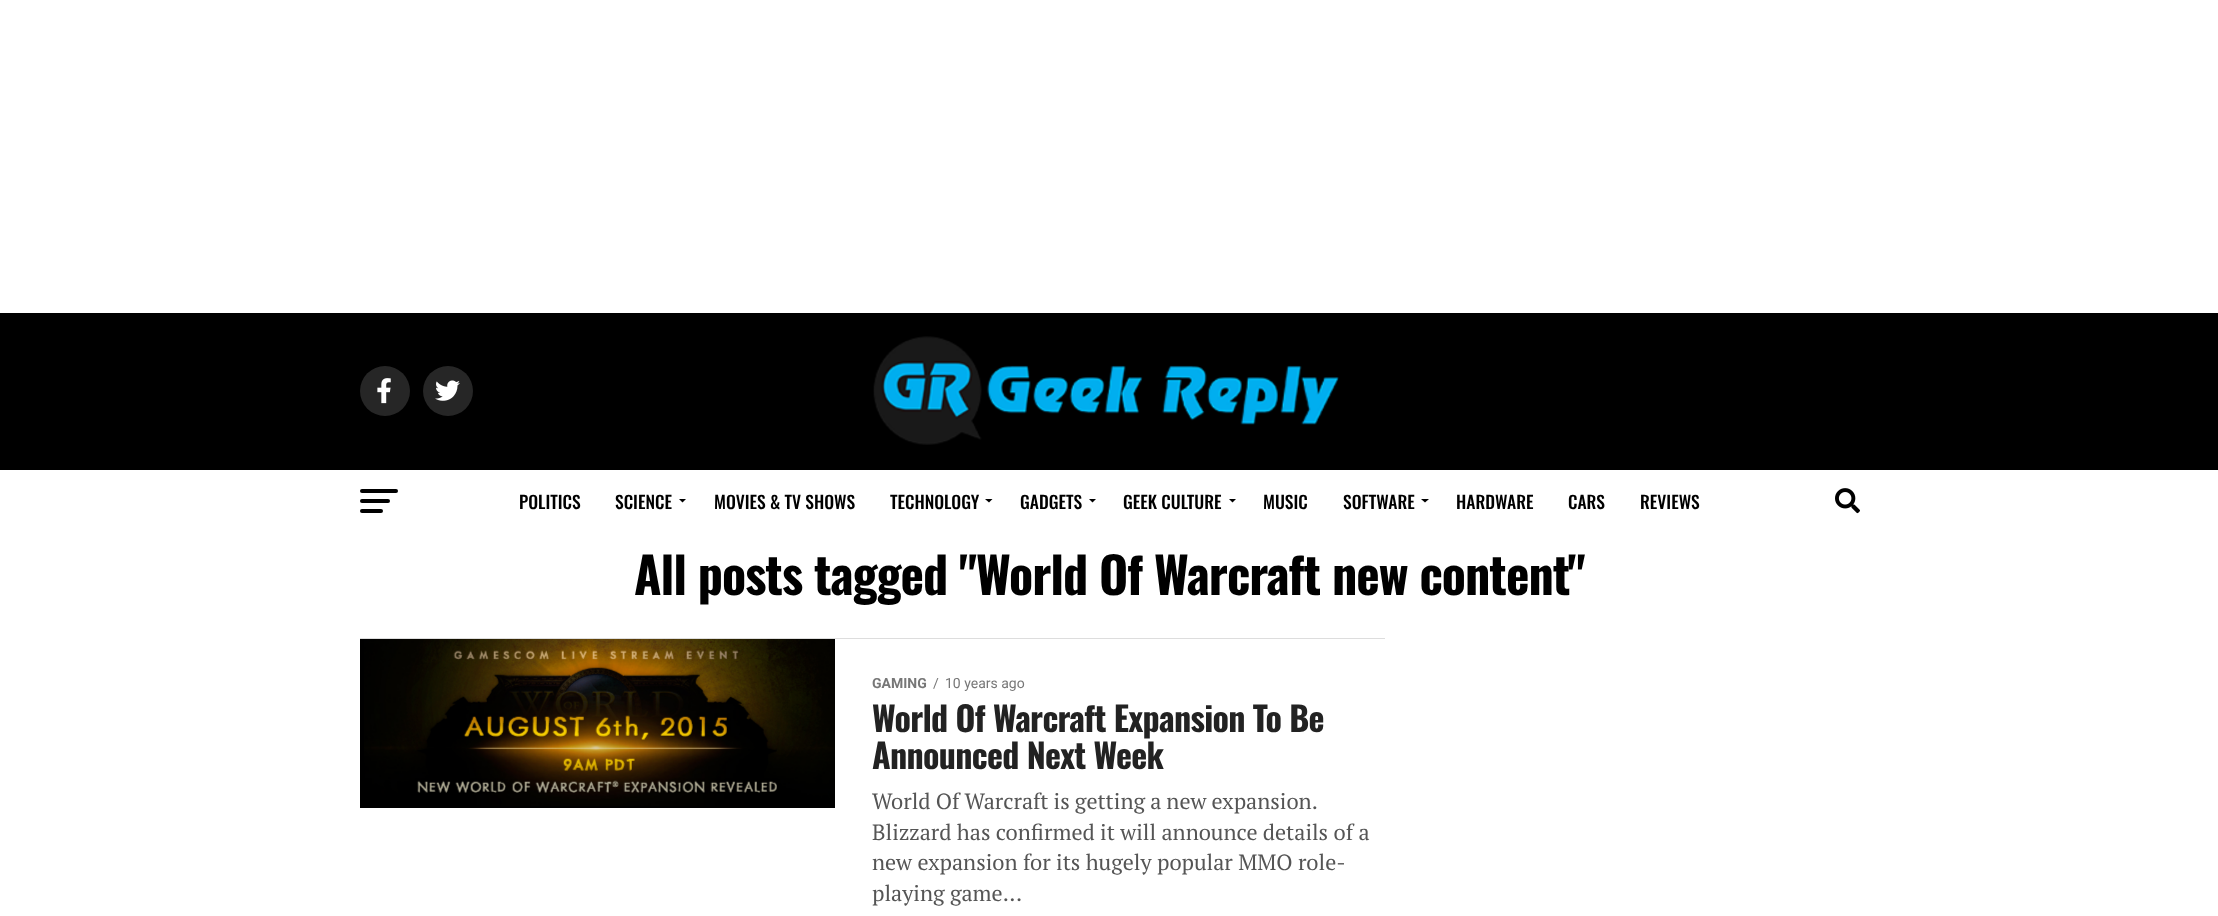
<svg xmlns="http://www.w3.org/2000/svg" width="2218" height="916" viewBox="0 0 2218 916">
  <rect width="100%" height="100%" fill="#ffffff"/>
  <rect x="0" y="313" width="2218" height="157" fill="#000000"/>
  <circle cx="385" cy="391" r="25" fill="#262626"/>
  <image x="377" y="378" width="14" height="26" href="img1.png"/>
  <circle cx="448" cy="391" r="25" fill="#262626"/>
  <image x="435" y="380" width="25" height="21" href="img2.png"/>
  <image x="873" y="336" width="466" height="109" href="img3.png"/>
  <rect x="360" y="489" width="38" height="4" rx="2" fill="#000000"/>
  <rect x="360" y="499" width="30" height="4" rx="2" fill="#000000"/>
  <rect x="360" y="509" width="23" height="4" rx="2" fill="#000000"/>
  <text x="519" y="509" font-family="Oswald" font-size="17.5" font-weight="500" fill="#000000">POLITICS</text>
  <text x="615" y="509" font-family="Oswald" font-size="17.5" font-weight="500" fill="#000000">SCIENCE</text>
  <path d="M679 499H686L682.5 502.5Z" fill="#000000"/>
  <text x="714" y="509" font-family="Oswald" font-size="17.5" font-weight="500" fill="#000000">MOVIES &amp; TV SHOWS</text>
  <text x="890" y="509" font-family="Oswald" font-size="17.5" font-weight="500" fill="#000000">TECHNOLOGY</text>
  <path d="M985 499H992.5L989 502.5Z" fill="#000000"/>
  <text x="1020" y="509" font-family="Oswald" font-size="17.5" font-weight="500" fill="#000000">GADGETS</text>
  <path d="M1089 499H1096L1092.5 502.5Z" fill="#000000"/>
  <text x="1123" y="509" font-family="Oswald" font-size="17.5" font-weight="500" fill="#000000">GEEK CULTURE</text>
  <path d="M1229 499H1236L1232.5 502.5Z" fill="#000000"/>
  <text x="1263" y="509" font-family="Oswald" font-size="17.5" font-weight="500" fill="#000000">MUSIC</text>
  <text x="1343" y="509" font-family="Oswald" font-size="17.5" font-weight="500" fill="#000000">SOFTWARE</text>
  <path d="M1421 499H1429L1425 502.5Z" fill="#000000"/>
  <text x="1456" y="509" font-family="Oswald" font-size="17.5" font-weight="500" fill="#000000">HARDWARE</text>
  <text x="1568" y="509" font-family="Oswald" font-size="17.5" font-weight="500" fill="#000000">CARS</text>
  <text x="1640" y="509" font-family="Oswald" font-size="17.5" font-weight="500" fill="#000000">REVIEWS</text>
  <image x="1835" y="488" width="25" height="26" href="img4.png"/>
  <text x="634" y="595" font-family="Oswald" font-size="50" font-weight="bold" letter-spacing="-1" fill="#000000">All posts tagged "World Of Warcraft new content"</text>
  <rect x="360" y="638" width="1025" height="1" fill="#dddddd"/>
  <rect x="360" y="639" width="475" height="169" fill="#000000"/>
  <image x="364" y="639" width="471" height="167" href="img5.png"/>
  <text x="872" y="688" font-family="Roboto" font-size="14" font-weight="bold" fill="#777777">GAMING</text>
  <text x="933" y="688" font-family="Roboto" font-size="14" fill="#777777">/</text>
  <text x="945" y="688" font-family="Roboto" font-size="14" fill="#777777">10 years ago</text>
  <text x="872" y="732" font-family="Oswald" font-size="34" font-weight="bold" letter-spacing="-0.7" fill="#222222">World Of Warcraft Expansion To Be</text>
  <text x="872" y="769" font-family="Oswald" font-size="34" font-weight="bold" letter-spacing="-0.7" fill="#222222">Announced Next Week</text>
  <text x="872" y="809" word-spacing="-0.25" font-family="PT Serif" font-size="22" fill="#555555">World Of Warcraft is getting a new expansion.</text>
  <text x="872" y="840" font-family="PT Serif" font-size="22" fill="#555555">Blizzard has confirmed it will announce details of a</text>
  <text x="872" y="870" font-family="PT Serif" font-size="22" fill="#555555">new expansion for its hugely popular MMO role-</text>
  <text x="872" y="901" font-family="PT Serif" font-size="22" fill="#555555">playing game...</text>
</svg>
